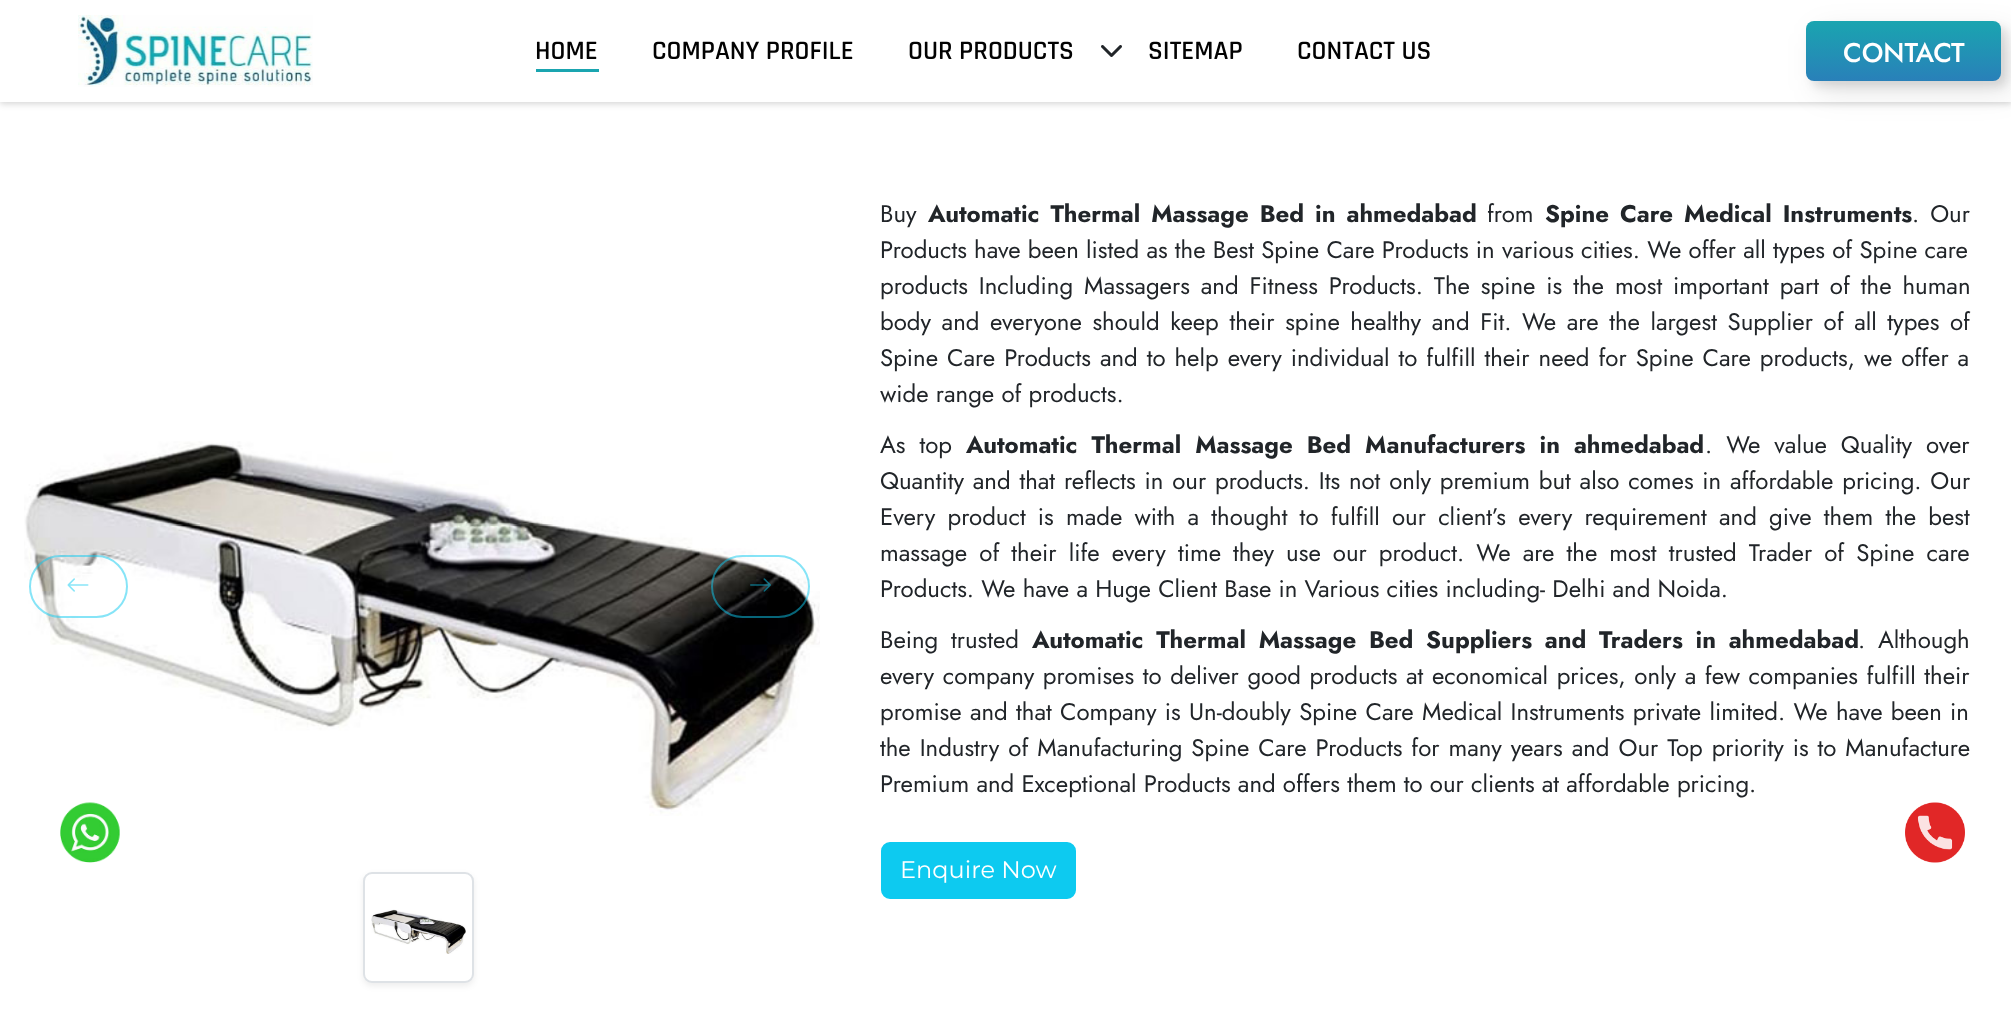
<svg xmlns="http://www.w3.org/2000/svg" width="2011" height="1035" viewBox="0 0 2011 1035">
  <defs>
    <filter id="blur1" x="-50%" y="-200%" width="200%" height="500%"><feGaussianBlur stdDeviation="3"/></filter>
    <filter id="blur2" x="-50%" y="-200%" width="200%" height="500%"><feGaussianBlur stdDeviation="4"/></filter>
    <filter id="blur3" x="-50%" y="-200%" width="200%" height="500%"><feGaussianBlur stdDeviation="15"/></filter>
    <linearGradient id="g1" gradientUnits="userSpaceOnUse" x1="1904" y1="81" x2="1904" y2="21"><stop offset="0" stop-color="#2980b9"/><stop offset="1" stop-color="#1aa5b0"/></linearGradient>
  </defs>
  <rect width="100%" height="100%" fill="#ffffff"/>
  <rect x="0" y="2" width="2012" height="102" fill="#000000" fill-opacity="0.16" filter="url(#blur1)"/>
  <rect x="0" y="0" width="2011" height="102" fill="#ffffff"/>
  <image x="78" y="15" width="235" height="72" href="img1.png"/>
  <text x="535" y="59" font-family="Rajdhani" font-size="27" font-weight="600" fill="#020202">HOME</text>
  <rect x="536" y="69" width="63" height="3" fill="#1aa5b0"/>
  <text x="652" y="59" font-family="Rajdhani" font-size="27" font-weight="600" fill="#020202">COMPANY PROFILE</text>
  <text x="908" y="59" font-family="Rajdhani" font-size="27" font-weight="600" fill="#020202">OUR PRODUCTS</text>
  <image x="1101" y="45" width="21" height="12" href="img2.png"/>
  <text x="1148" y="59" font-family="Rajdhani" font-size="27" font-weight="600" fill="#020202">SITEMAP</text>
  <text x="1297" y="59" font-family="Rajdhani" font-size="27" font-weight="600" fill="#020202">CONTACT US</text>
  <rect x="1812" y="27" width="195" height="60" rx="8" fill="#000000" fill-opacity="0.1" filter="url(#blur2)"/>
  <rect x="1817" y="32" width="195" height="60" rx="8" fill="#000000" fill-opacity="0.1" filter="url(#blur3)"/>
  <rect x="1806" y="21" width="195" height="60" rx="8" fill="url(#g1)"/>
  <text x="1843" y="62" font-family="Jost" font-size="27" font-weight="500" fill="#ffffff">CONTACT</text>
  <image x="24" y="441" width="796" height="375" href="img4.png"/>
  <image x="60" y="802" width="60" height="61" href="img3.png"/>
  <rect x="30" y="556" width="97" height="61" rx="30.5" fill="none" stroke="#0dcaf0" stroke-opacity="0.5" stroke-width="2"/>
  <image x="67" y="578" width="22" height="14" href="img5.png"/>
  <rect x="712" y="556" width="97" height="61" rx="30.5" fill="none" stroke="#0dcaf0" stroke-opacity="0.5" stroke-width="2"/>
  <image x="750" y="578" width="21" height="14" href="img6.png"/>
  <rect x="363" y="875" width="111" height="111" rx="9" fill="#000000" fill-opacity="0.07" filter="url(#blur1)"/>
  <rect x="364" y="873" width="109" height="109" rx="8" fill="#ffffff" stroke="#dee2e6" stroke-width="2"/>
  <image x="371" y="909" width="95" height="45" href="img7.png"/>
  <text x="880" y="222" font-family="Jost" font-size="24" fill="#212529">Buy</text>
  <text x="928" y="222" word-spacing="3.75" font-family="Jost" font-size="24" font-weight="bold" fill="#212529">Automatic Thermal Massage Bed in ahmedabad</text>
  <text x="1487" y="222" font-family="Jost" font-size="24" fill="#212529">from</text>
  <text x="1545" y="222" word-spacing="3.75" font-family="Jost" font-size="24" font-weight="bold" fill="#212529">Spine Care Medical Instruments</text>
  <text x="1912" y="222" word-spacing="3.75" font-family="Jost" font-size="24" fill="#212529">. Our</text>
  <text x="880" y="258" font-family="Jost" font-size="24" fill="#212529">Products have been listed as the Best Spine Care Products in various cities. We offer all types of Spine care</text>
  <text x="880" y="294" word-spacing="3.75" font-family="Jost" font-size="24" fill="#212529">products Including Massagers and Fitness Products. The spine is the most important part of the human</text>
  <text x="880" y="330" word-spacing="3.4" font-family="Jost" font-size="24" fill="#212529">body and everyone should keep their spine healthy and Fit. We are the largest Supplier of all types of</text>
  <text x="880" y="366" word-spacing="1.75" font-family="Jost" font-size="24" fill="#212529">Spine Care Products and to help every individual to fulfill their need for Spine Care products, we offer a</text>
  <text x="880" y="402" font-family="Jost" font-size="24" fill="#212529">wide range of products.</text>
  <text x="880" y="453" word-spacing="6.75" font-family="Jost" font-size="24" fill="#212529">As top</text>
  <text x="966" y="453" word-spacing="6.75" font-family="Jost" font-size="24" font-weight="bold" fill="#212529">Automatic Thermal Massage Bed Manufacturers in ahmedabad</text>
  <text x="1705" y="453" word-spacing="6.75" font-family="Jost" font-size="24" fill="#212529">. We value Quality over</text>
  <text x="880" y="489" word-spacing="1.6" font-family="Jost" font-size="24" fill="#212529">Quantity and that reflects in our products. Its not only premium but also comes in affordable pricing. Our</text>
  <text x="880" y="525" word-spacing="5" font-family="Jost" font-size="24" fill="#212529">Every product is made with a thought to fulfill our client’s every requirement and give them the best</text>
  <text x="880" y="561" word-spacing="4.9" font-family="Jost" font-size="24" fill="#212529">massage of their life every time they use our product. We are the most trusted Trader of Spine care</text>
  <text x="880" y="597" font-family="Jost" font-size="24" fill="#212529">Products. We have a Huge Client Base in Various cities including- Delhi and Noida.</text>
  <text x="880" y="648" word-spacing="5.5" font-family="Jost" font-size="24" fill="#212529">Being trusted</text>
  <text x="1032" y="648" word-spacing="5.5" font-family="Jost" font-size="24" font-weight="bold" fill="#212529">Automatic Thermal Massage Bed Suppliers and Traders in ahmedabad</text>
  <text x="1858" y="648" font-family="Jost" font-size="24" fill="#212529">.</text>
  <text x="1878" y="648" font-family="Jost" font-size="24" fill="#212529">Although</text>
  <text x="880" y="684" word-spacing="1.4" font-family="Jost" font-size="24" fill="#212529">every company promises to deliver good products at economical prices, only a few companies fulfill their</text>
  <text x="880" y="720" word-spacing="1.1" font-family="Jost" font-size="24" fill="#212529">promise and that Company is Un-doubly Spine Care Medical Instruments private limited. We have been in</text>
  <text x="880" y="756" word-spacing="1.75" font-family="Jost" font-size="24" fill="#212529">the Industry of Manufacturing Spine Care Products for many years and Our Top priority is to Manufacture</text>
  <text x="880" y="792" font-family="Jost" font-size="24" fill="#212529">Premium and Exceptional Products and offers them to our clients at affordable pricing.</text>
  <rect x="882" y="843" width="193" height="55" rx="8" fill="#0dcaf0" stroke="#0dcaf0" stroke-width="2"/>
  <text x="900" y="878" font-family="Montserrat" font-size="24" fill="#ffffff">Enquire Now</text>
  <image x="1905" y="802" width="60" height="61" href="img8.png"/>
</svg>
